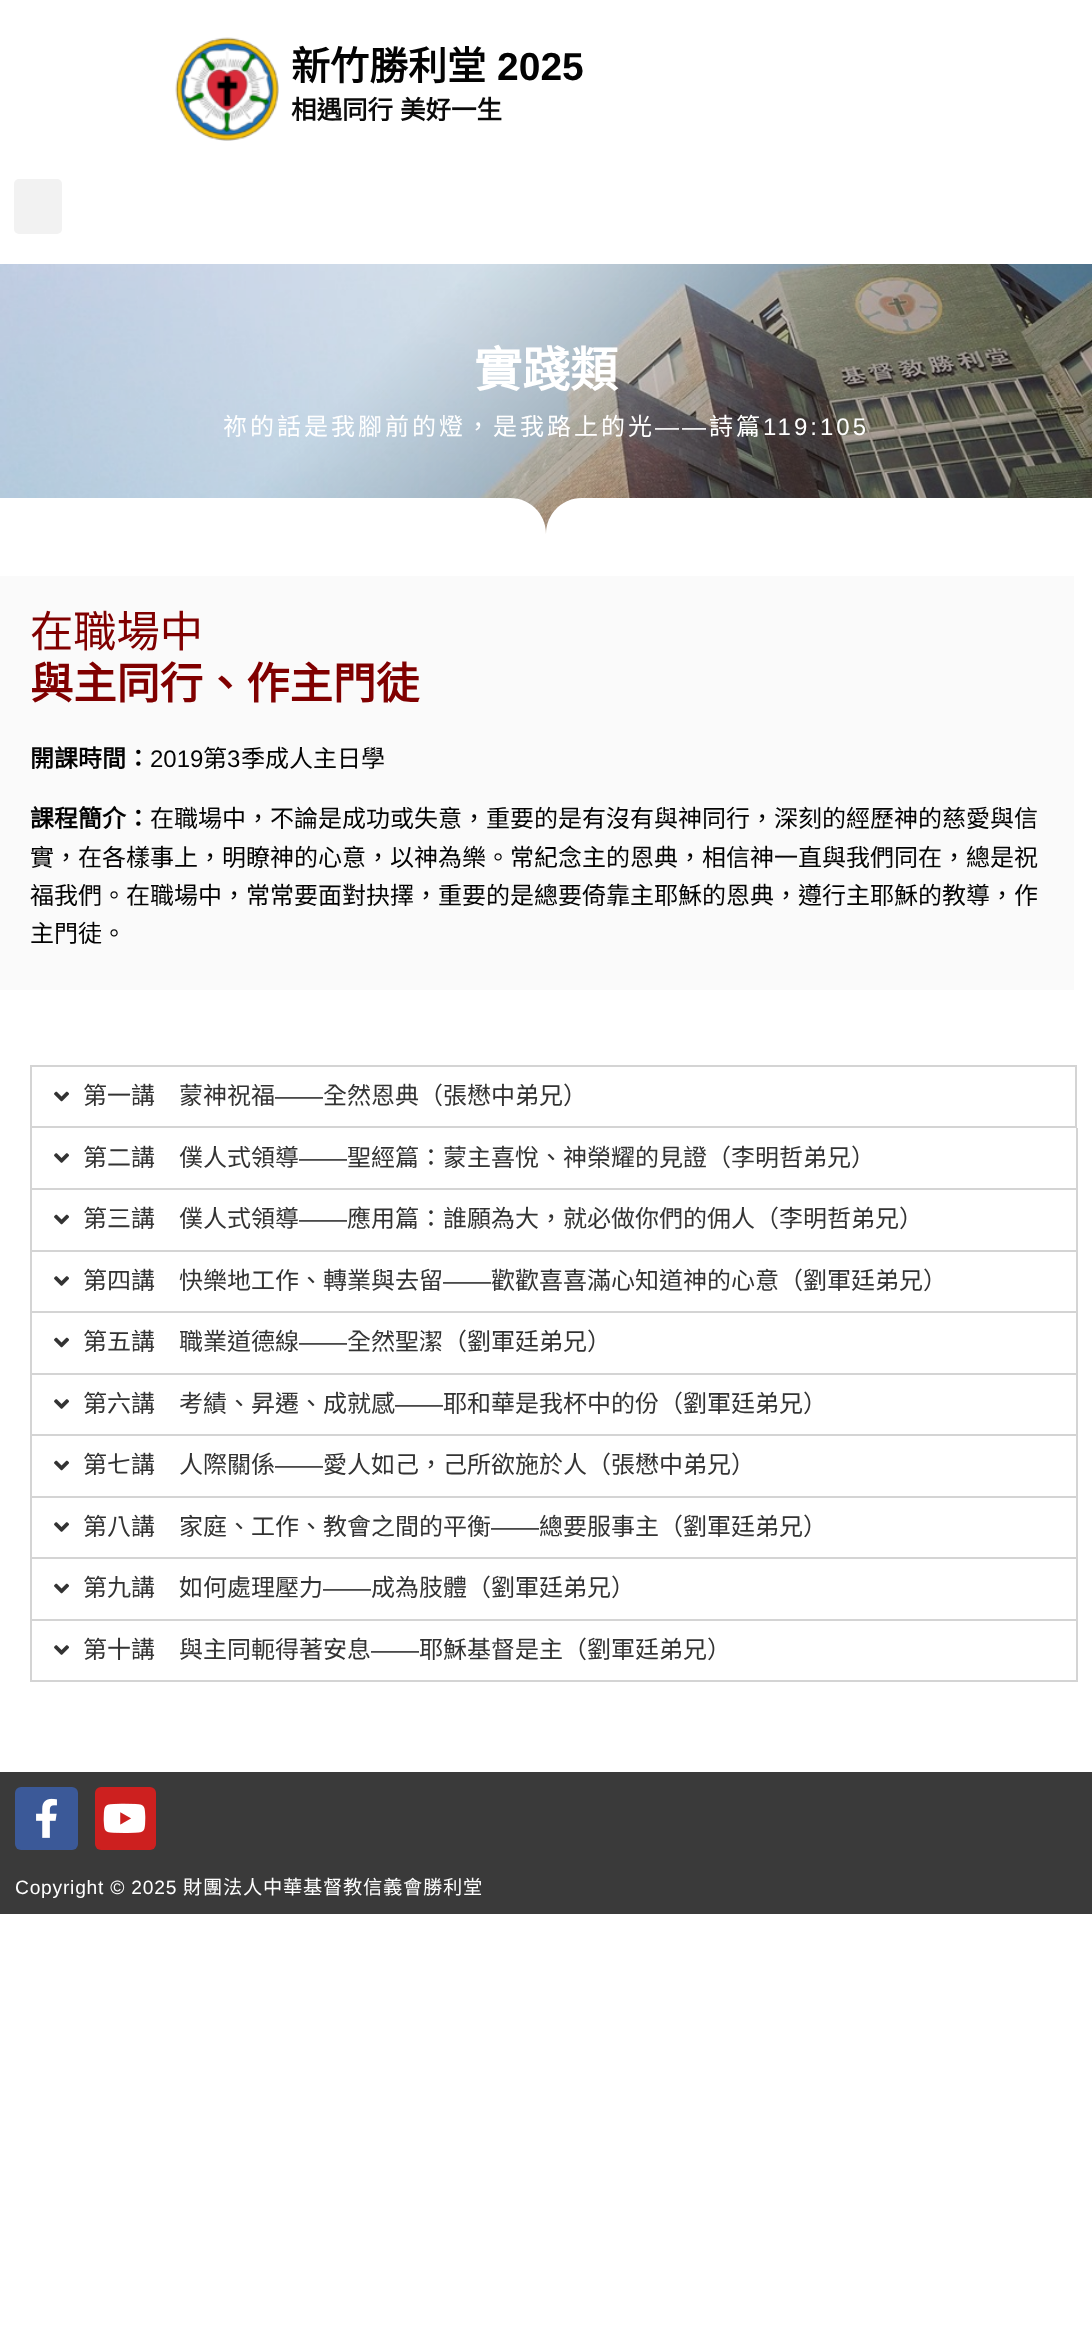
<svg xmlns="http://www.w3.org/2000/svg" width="1092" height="2329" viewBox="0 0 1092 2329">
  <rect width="100%" height="100%" fill="#ffffff"/>
  <image x="175" y="37" width="104" height="104" href="img1.png"/>
  <text x="291" y="80" font-family="Noto Sans CJK TC" font-size="39" font-weight="bold" fill="#030303">新竹勝利堂</text>
  <text x="497" y="80" font-family="Liberation Sans" font-size="39" font-weight="bold" fill="#030303">2025</text>
  <text x="291" y="119" font-family="Noto Sans CJK TC" font-size="25.5" font-weight="bold" fill="#0a0a0a">相遇同行</text>
  <text x="400" y="119" font-family="Noto Sans CJK TC" font-size="25.5" font-weight="bold" fill="#0a0a0a">美好一生</text>
  <rect x="14" y="179" width="48" height="55" rx="5" fill="#f2f2f2"/>
  <image x="0" y="264" width="1092" height="270" href="img2.png"/>
  <text x="474" y="387" font-family="Noto Sans CJK TC" font-size="48" font-weight="bold" fill="#ffffff">實踐類</text>
  <text x="223" y="435" font-family="Noto Sans CJK TC" font-size="24" letter-spacing="3" fill="#ffffff">祢的話是我腳前的燈，是我路上的光</text>
  <text x="655" y="435" font-family="Liberation Sans" font-size="24" letter-spacing="3" fill="#ffffff">——</text>
  <text x="709" y="435" font-family="Noto Sans CJK TC" font-size="24" letter-spacing="3" fill="#ffffff">詩篇</text>
  <text x="763" y="435" font-family="Liberation Sans" font-size="24" letter-spacing="3" fill="#ffffff">119:105</text>
  <path d="M582 498C562 498 546 514 546 534C546 514 530 498 510 498H-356V536H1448V498Z" fill="#ffffff"/>
  <rect x="0" y="576" width="1074" height="414" fill="#fafafa"/>
  <text x="30" y="647" font-family="Noto Sans CJK TC" font-size="43.25" fill="#800000">在職場中</text>
  <text x="30" y="699" font-family="Noto Sans CJK TC" font-size="43.25" font-weight="bold" fill="#800000">與主同行、作主門徒</text>
  <text x="30" y="767" font-family="Noto Sans CJK TC" font-size="24" font-weight="bold" fill="#030303">開課時間：</text>
  <text x="150" y="767" font-family="Liberation Sans" font-size="24" fill="#030303">2019</text>
  <text x="203" y="767" font-family="Noto Sans CJK TC" font-size="24" fill="#030303">第</text>
  <text x="227" y="767" font-family="Liberation Sans" font-size="24" fill="#030303">3</text>
  <text x="241" y="767" font-family="Noto Sans CJK TC" font-size="24" fill="#030303">季成人主日學</text>
  <text x="30" y="827" font-family="Noto Sans CJK TC" font-size="24" font-weight="bold" fill="#030303">課程簡介：</text>
  <text x="150" y="827" font-family="Noto Sans CJK TC" font-size="24" fill="#030303">在職場中，不論是成功或失意，重要的是有沒有與神同行，深刻的經歷神的慈愛與信</text>
  <text x="30" y="866" font-family="Noto Sans CJK TC" font-size="24" fill="#030303">實，在各樣事上，明瞭神的心意，以神為樂。常紀念主的恩典，相信神一直與我們同在，總是祝</text>
  <text x="30" y="904" font-family="Noto Sans CJK TC" font-size="24" fill="#030303">福我們。在職場中，常常要面對抉擇，重要的是總要倚靠主耶穌的恩典，遵行主耶穌的教導，作</text>
  <text x="30" y="942" font-family="Noto Sans CJK TC" font-size="24" fill="#030303">主門徒。</text>
  <rect x="31" y="1066" width="1045" height="61" fill="none" stroke="#d4d4d4" stroke-width="2"/>
  <image x="54" y="1091" width="15" height="11" href="img3.png"/>
  <text x="83" y="1104" font-family="Noto Sans CJK TC" font-size="24" fill="#333333">第一講　蒙神祝福</text>
  <text x="275" y="1104" font-family="Liberation Sans" font-size="24" fill="#333333">——</text>
  <text x="323" y="1104" font-family="Noto Sans CJK TC" font-size="24" fill="#333333">全然恩典（張懋中弟兄）</text>
  <rect x="1076" y="1128" width="2" height="123" fill="#d4d4d4"/>
  <rect x="30" y="1188" width="1047" height="2" fill="#d4d4d4"/>
  <rect x="30" y="1128" width="2" height="62" fill="#d4d4d4"/>
  <image x="54" y="1153" width="15" height="10" href="img4.png"/>
  <text x="83" y="1166" font-family="Noto Sans CJK TC" font-size="24" fill="#333333">第二講　僕人式領導</text>
  <text x="299" y="1166" font-family="Liberation Sans" font-size="24" fill="#333333">——</text>
  <text x="347" y="1166" font-family="Noto Sans CJK TC" font-size="24" fill="#333333">聖經篇：蒙主喜悅、神榮耀的見證（李明哲弟兄）</text>
  <rect x="30" y="1250" width="1047" height="2" fill="#d4d4d4"/>
  <rect x="30" y="1190" width="2" height="61" fill="#d4d4d4"/>
  <image x="54" y="1214" width="15" height="11" href="img3.png"/>
  <text x="83" y="1227" font-family="Noto Sans CJK TC" font-size="24" fill="#333333">第三講　僕人式領導</text>
  <text x="299" y="1227" font-family="Liberation Sans" font-size="24" fill="#333333">——</text>
  <text x="347" y="1227" font-family="Noto Sans CJK TC" font-size="24" fill="#333333">應用篇：誰願為大，就必做你們的佣人（李明哲弟兄）</text>
  <rect x="1076" y="1251" width="2" height="123" fill="#d4d4d4"/>
  <rect x="30" y="1311" width="1047" height="2" fill="#d4d4d4"/>
  <rect x="30" y="1251" width="2" height="62" fill="#d4d4d4"/>
  <image x="54" y="1276" width="15" height="10" href="img4.png"/>
  <text x="83" y="1289" font-family="Noto Sans CJK TC" font-size="24" fill="#333333">第四講　快樂地工作、轉業與去留</text>
  <text x="443" y="1289" font-family="Liberation Sans" font-size="24" fill="#333333">——</text>
  <text x="491" y="1289" font-family="Noto Sans CJK TC" font-size="24" fill="#333333">歡歡喜喜滿心知道神的心意（劉軍廷弟兄）</text>
  <rect x="30" y="1373" width="1047" height="2" fill="#d4d4d4"/>
  <rect x="30" y="1313" width="2" height="61" fill="#d4d4d4"/>
  <image x="54" y="1337" width="15" height="11" href="img3.png"/>
  <text x="83" y="1350" font-family="Noto Sans CJK TC" font-size="24" fill="#333333">第五講　職業道德線</text>
  <text x="299" y="1350" font-family="Liberation Sans" font-size="24" fill="#333333">——</text>
  <text x="347" y="1350" font-family="Noto Sans CJK TC" font-size="24" fill="#333333">全然聖潔（劉軍廷弟兄）</text>
  <rect x="1076" y="1374" width="2" height="123" fill="#d4d4d4"/>
  <rect x="30" y="1434" width="1047" height="2" fill="#d4d4d4"/>
  <rect x="30" y="1374" width="2" height="62" fill="#d4d4d4"/>
  <image x="54" y="1399" width="15" height="10" href="img4.png"/>
  <text x="83" y="1412" font-family="Noto Sans CJK TC" font-size="24" fill="#333333">第六講　考績、昇遷、成就感</text>
  <text x="395" y="1412" font-family="Liberation Sans" font-size="24" fill="#333333">——</text>
  <text x="443" y="1412" font-family="Noto Sans CJK TC" font-size="24" fill="#333333">耶和華是我杯中的份（劉軍廷弟兄）</text>
  <rect x="30" y="1496" width="1047" height="2" fill="#d4d4d4"/>
  <rect x="30" y="1436" width="2" height="61" fill="#d4d4d4"/>
  <image x="54" y="1460" width="15" height="11" href="img3.png"/>
  <text x="83" y="1473" font-family="Noto Sans CJK TC" font-size="24" fill="#333333">第七講　人際關係</text>
  <text x="275" y="1473" font-family="Liberation Sans" font-size="24" fill="#333333">——</text>
  <text x="323" y="1473" font-family="Noto Sans CJK TC" font-size="24" fill="#333333">愛人如己，己所欲施於人（張懋中弟兄）</text>
  <rect x="1076" y="1497" width="2" height="123" fill="#d4d4d4"/>
  <rect x="30" y="1557" width="1047" height="2" fill="#d4d4d4"/>
  <rect x="30" y="1497" width="2" height="62" fill="#d4d4d4"/>
  <image x="54" y="1522" width="15" height="10" href="img4.png"/>
  <text x="83" y="1535" font-family="Noto Sans CJK TC" font-size="24" fill="#333333">第八講　家庭、工作、教會之間的平衡</text>
  <text x="491" y="1535" font-family="Liberation Sans" font-size="24" fill="#333333">——</text>
  <text x="539" y="1535" font-family="Noto Sans CJK TC" font-size="24" fill="#333333">總要服事主（劉軍廷弟兄）</text>
  <rect x="30" y="1619" width="1047" height="2" fill="#d4d4d4"/>
  <rect x="30" y="1559" width="2" height="61" fill="#d4d4d4"/>
  <image x="54" y="1583" width="15" height="11" href="img3.png"/>
  <text x="83" y="1596" font-family="Noto Sans CJK TC" font-size="24" fill="#333333">第九講　如何處理壓力</text>
  <text x="323" y="1596" font-family="Liberation Sans" font-size="24" fill="#333333">——</text>
  <text x="371" y="1596" font-family="Noto Sans CJK TC" font-size="24" fill="#333333">成為肢體（劉軍廷弟兄）</text>
  <rect x="1076" y="1620" width="2" height="62" fill="#d4d4d4"/>
  <rect x="30" y="1680" width="1047" height="2" fill="#d4d4d4"/>
  <rect x="30" y="1620" width="2" height="62" fill="#d4d4d4"/>
  <image x="54" y="1645" width="15" height="10" href="img4.png"/>
  <text x="83" y="1658" font-family="Noto Sans CJK TC" font-size="24" fill="#333333">第十講　與主同軛得著安息</text>
  <text x="371" y="1658" font-family="Liberation Sans" font-size="24" fill="#333333">——</text>
  <text x="419" y="1658" font-family="Noto Sans CJK TC" font-size="24" fill="#333333">耶穌基督是主（劉軍廷弟兄）</text>
  <rect x="0" y="1772" width="1092" height="142" fill="#3a3a3a"/>
  <rect x="15" y="1787" width="63" height="63" rx="6" fill="#3b5998"/>
  <image x="36" y="1798" width="21" height="40" href="img5.png"/>
  <rect x="95" y="1787" width="61" height="63" rx="6" fill="#cd201f"/>
  <image x="103" y="1803" width="43" height="30" href="img6.png"/>
  <text x="15" y="1894" font-family="Liberation Sans" font-size="19.25" letter-spacing="0.75" fill="#ffffff">Copyright © 2025</text>
  <text x="183" y="1894" font-family="Noto Sans CJK TC" font-size="19.25" letter-spacing="0.75" fill="#ffffff">財團法人中華基督教信義會勝利堂</text>
</svg>
